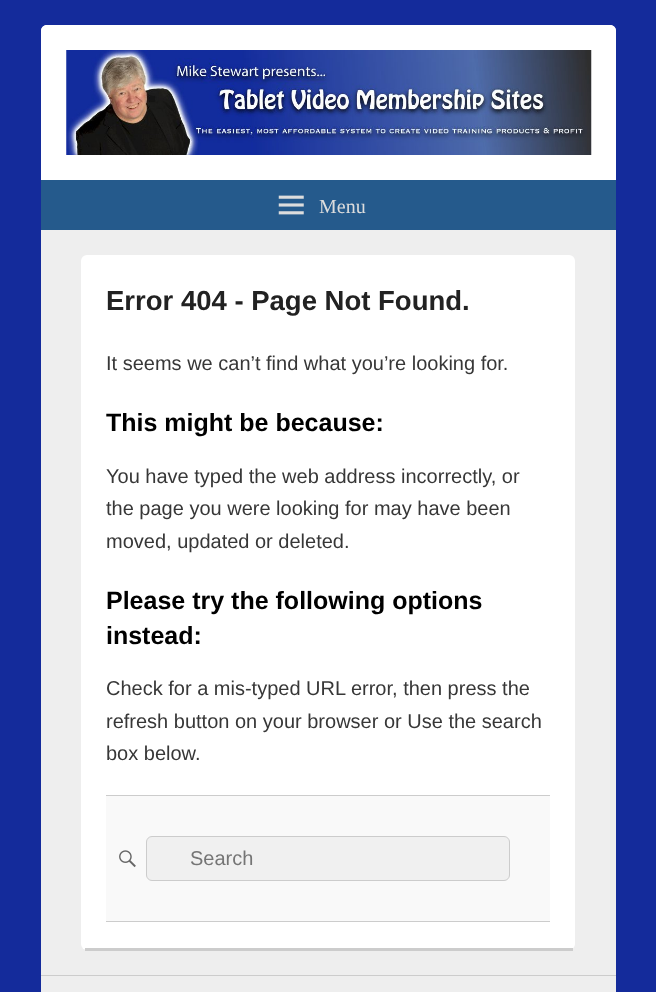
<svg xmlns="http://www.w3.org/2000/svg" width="656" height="992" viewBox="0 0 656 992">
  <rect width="100%" height="100%" fill="#142b9b"/>
  <rect x="41" y="25" width="575" height="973" rx="6" fill="#eeeeee"/>
  <path d="M47 25H610C613.5 25 616 27.5 616 31V230H41V31C41 27.5 43.5 25 47 25Z" fill="#ffffff"/>
  <image x="66" y="50" width="526" height="105" href="img1.png"/>
  <rect x="41" y="180" width="575" height="50" fill="#255a8c"/>
  <image x="278" y="195" width="26" height="20" href="img2.png"/>
  <text x="319" y="213" font-family="Liberation Serif" font-size="20" fill="#dddddd">Menu</text>
  <rect x="81" y="255" width="494" height="695" rx="6" fill="#ffffff"/>
  <rect x="85" y="948" width="488" height="3" fill="#cccccc"/>
  <text x="106" y="310" font-family="Liberation Sans" font-size="27.5" font-weight="bold" fill="#222222">Error 404 - Page Not Found.</text>
  <text x="106" y="370" font-family="Liberation Sans" font-size="20" fill="#373737">It seems we can’t find what you’re looking for.</text>
  <text x="106" y="431" font-family="Liberation Sans" font-size="25" font-weight="bold" fill="#000000">This might be because:</text>
  <text x="106" y="483" font-family="Liberation Sans" font-size="20" fill="#373737">You have typed the web address incorrectly, or</text>
  <text x="106" y="515" font-family="Liberation Sans" font-size="20" fill="#373737">the page you were looking for may have been</text>
  <text x="106" y="548" font-family="Liberation Sans" font-size="20" fill="#373737">moved, updated or deleted.</text>
  <text x="106" y="609" font-family="Liberation Sans" font-size="25" font-weight="bold" fill="#000000">Please try the following options</text>
  <text x="106" y="644" font-family="Liberation Sans" font-size="25" font-weight="bold" fill="#000000">instead:</text>
  <text x="106" y="695" font-family="Liberation Sans" font-size="20" fill="#373737">Check for a mis-typed URL error, then press the</text>
  <text x="106" y="728" font-family="Liberation Sans" font-size="20" fill="#373737">refresh button on your browser or Use the search</text>
  <text x="106" y="760" font-family="Liberation Sans" font-size="20" fill="#373737">box below.</text>
  <rect x="106" y="796" width="444" height="125" fill="#f9f9f9"/>
  <rect x="106" y="795" width="444" height="1" fill="#cccccc"/>
  <rect x="106" y="921" width="444" height="1" fill="#cccccc"/>
  <image x="119" y="850" width="17" height="18" href="img3.png"/>
  <rect x="146.5" y="836.5" width="363" height="44" rx="5.5" fill="#f0f0f0" stroke="#cccccc"/>
  <text x="190" y="865" font-family="Liberation Sans" font-size="20" fill="#757575">Search</text>
  <rect x="41" y="975" width="575" height="1" fill="#cccccc"/>
</svg>
